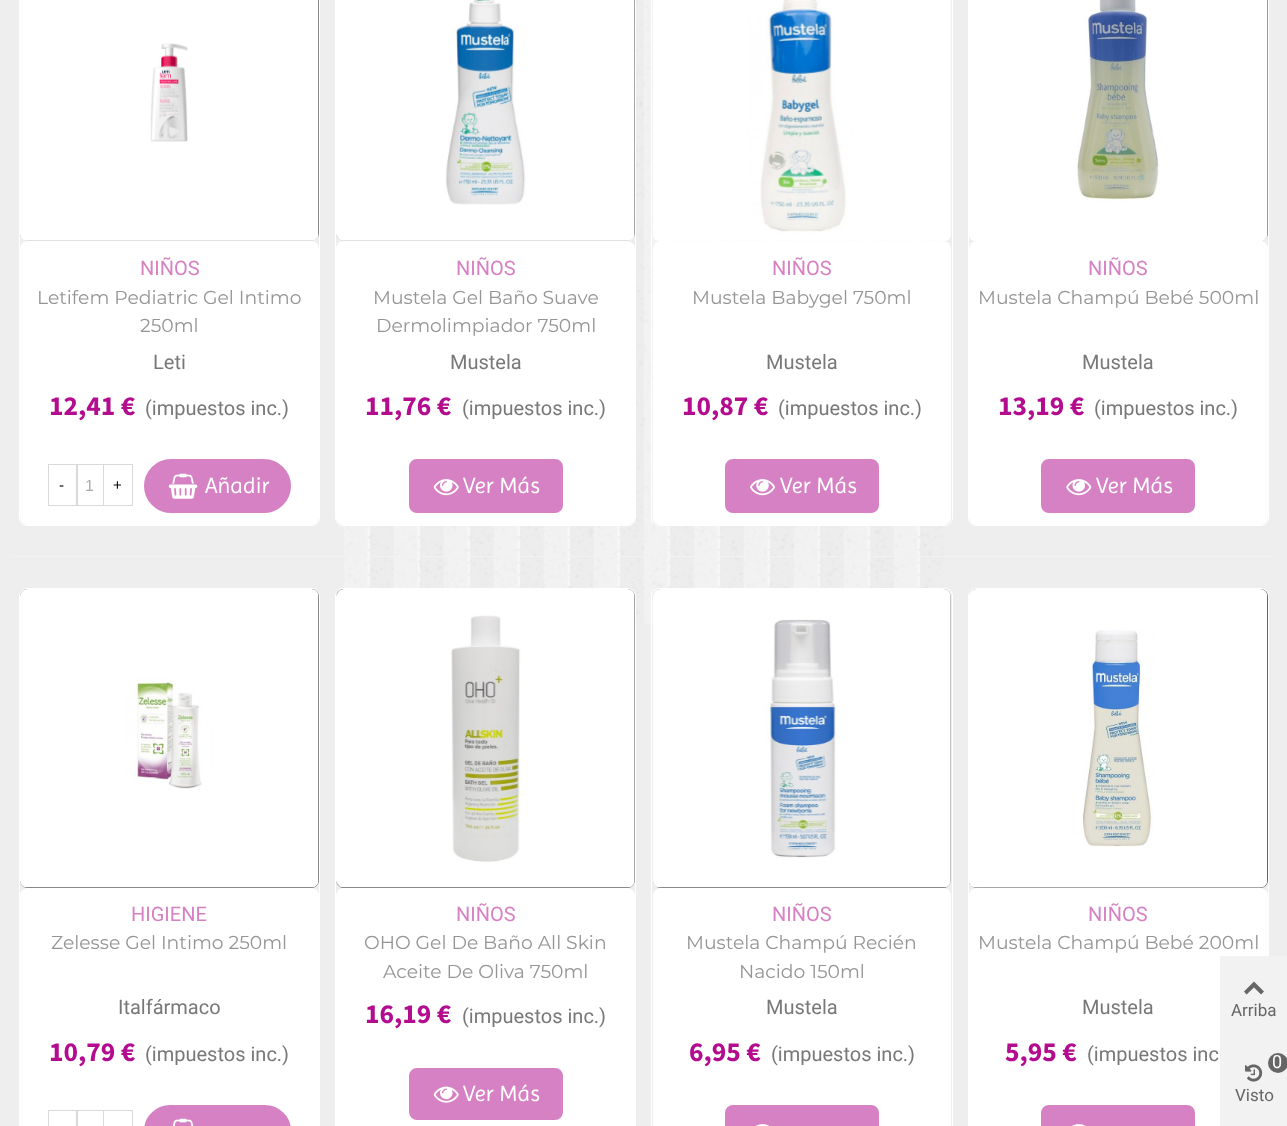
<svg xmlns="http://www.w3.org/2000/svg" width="1287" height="1126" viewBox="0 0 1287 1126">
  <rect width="100%" height="100%" fill="#eeeeee"/>
  <image x="344" y="0" width="600" height="625" href="img1.png"/>
  <rect x="19.5" y="-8.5" width="300" height="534" rx="7.5" fill="none" stroke="#ffffff"/>
  <rect x="20" y="-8" width="299" height="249" rx="8" fill="#333333"/>
  <image x="20" y="0" width="299" height="241" href="img2.png"/>
  <rect x="20" y="241" width="299" height="284" rx="8" fill="#ffffff"/>
  <text x="140" y="275" font-family="Roboto" font-size="20" fill="#d681c4">NIÑOS</text>
  <text x="37" y="304" font-family="Montserrat" font-size="18.75" fill="#959595">Letifem Pediatric Gel Intimo</text>
  <text x="140" y="332" font-family="Montserrat" font-size="18.75" fill="#959595">250ml</text>
  <text x="153" y="369" font-family="Roboto" font-size="20" fill="#787878">Leti</text>
  <text x="49" y="415" font-family="Source Sans Pro" font-size="27.5" font-weight="bold" fill="#b40c8f">12,41 €</text>
  <text x="145" y="415" font-family="Roboto" font-size="20" fill="#787878">(impuestos inc.)</text>
  <rect x="48.5" y="464.5" width="29" height="41" fill="none" stroke="#d9d9d9"/>
  <text x="59" y="490" font-family="Liberation Sans" font-size="15" fill="#000000">-</text>
  <rect x="76.5" y="464.5" width="27" height="41" fill="none" stroke="#d9d9d9"/>
  <text x="85" y="491" font-family="Liberation Sans" font-size="16" fill="#acaaa6">1</text>
  <rect x="103.5" y="464.5" width="29" height="41" fill="none" stroke="#d9d9d9"/>
  <text x="113" y="490" font-family="Liberation Sans" font-size="15" fill="#000000">+</text>
  <rect x="145.5" y="460.5" width="144" height="51" rx="25.5" fill="#d681c4" stroke="#d681c4" stroke-width="3"/>
  <image x="168" y="473" width="30" height="26" href="img3.png"/>
  <text x="205" y="493" font-family="Imprima" font-size="22.5" fill="#ffffff">Añadir</text>
  <rect x="335.5" y="-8.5" width="300" height="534" rx="7.5" fill="none" stroke="#ffffff"/>
  <rect x="336" y="-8" width="299" height="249" rx="8" fill="#333333"/>
  <image x="336" y="0" width="299" height="241" href="img4.png"/>
  <rect x="336" y="241" width="299" height="284" rx="8" fill="#ffffff"/>
  <text x="456" y="275" font-family="Roboto" font-size="20" fill="#d681c4">NIÑOS</text>
  <text x="373" y="304" font-family="Montserrat" font-size="18.75" fill="#959595">Mustela Gel Baño Suave</text>
  <text x="376" y="332" font-family="Montserrat" font-size="18.75" fill="#959595">Dermolimpiador 750ml</text>
  <text x="450" y="369" font-family="Roboto" font-size="20" fill="#787878">Mustela</text>
  <text x="365" y="415" font-family="Source Sans Pro" font-size="27.5" font-weight="bold" fill="#b40c8f">11,76 €</text>
  <text x="462" y="415" font-family="Roboto" font-size="20" fill="#787878">(impuestos inc.)</text>
  <rect x="410.5" y="460.5" width="151" height="51" rx="6.5" fill="#d681c4" stroke="#d681c4" stroke-width="3"/>
  <image x="433" y="479" width="26" height="17" href="img5.png"/>
  <text x="463" y="493" font-family="Imprima" font-size="22.5" fill="#ffffff">Ver Más</text>
  <rect x="651.5" y="-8.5" width="301" height="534" rx="7.5" fill="none" stroke="#ffffff"/>
  <image x="653" y="0" width="298" height="241" href="img6.png"/>
  <rect x="653" y="241" width="298" height="284" rx="8" fill="#ffffff"/>
  <text x="772" y="275" font-family="Roboto" font-size="20" fill="#d681c4">NIÑOS</text>
  <text x="692" y="304" font-family="Montserrat" font-size="18.75" fill="#959595">Mustela Babygel 750ml</text>
  <text x="766" y="369" font-family="Roboto" font-size="20" fill="#787878">Mustela</text>
  <text x="682" y="415" font-family="Source Sans Pro" font-size="27.5" font-weight="bold" fill="#b40c8f">10,87 €</text>
  <text x="778" y="415" font-family="Roboto" font-size="20" fill="#787878">(impuestos inc.)</text>
  <rect x="726.5" y="460.5" width="151" height="51" rx="6.5" fill="#d681c4" stroke="#d681c4" stroke-width="3"/>
  <image x="750" y="479" width="25" height="17" href="img7.png"/>
  <text x="780" y="493" font-family="Imprima" font-size="22.5" fill="#ffffff">Ver Más</text>
  <rect x="968.5" y="-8.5" width="300" height="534" rx="7.5" fill="none" stroke="#ffffff"/>
  <rect x="969" y="-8" width="299" height="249" rx="8" fill="#333333"/>
  <image x="969" y="0" width="299" height="241" href="img8.png"/>
  <rect x="969" y="241" width="299" height="284" rx="8" fill="#ffffff"/>
  <text x="1088" y="275" font-family="Roboto" font-size="20" fill="#d681c4">NIÑOS</text>
  <text x="978" y="304" font-family="Montserrat" font-size="18.75" fill="#959595">Mustela Champú Bebé 500ml</text>
  <text x="1082" y="369" font-family="Roboto" font-size="20" fill="#787878">Mustela</text>
  <text x="998" y="415" font-family="Source Sans Pro" font-size="27.5" font-weight="bold" fill="#b40c8f">13,19 €</text>
  <text x="1094" y="415" font-family="Roboto" font-size="20" fill="#787878">(impuestos inc.)</text>
  <rect x="1042.5" y="460.5" width="151" height="51" rx="6.5" fill="#d681c4" stroke="#d681c4" stroke-width="3"/>
  <image x="1066" y="479" width="26" height="17" href="img9.png"/>
  <text x="1096" y="493" font-family="Imprima" font-size="22.5" fill="#ffffff">Ver Más</text>
  <rect x="11" y="556" width="633" height="1" fill="#f2f2f2"/>
  <rect x="19.5" y="588.5" width="300" height="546" rx="7.5" fill="none" stroke="#ffffff"/>
  <rect x="20" y="589" width="299" height="299" rx="8" fill="#333333"/>
  <image x="20" y="589" width="299" height="299" href="img10.png"/>
  <rect x="20" y="888" width="299" height="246" rx="8" fill="#ffffff"/>
  <text x="131" y="921" font-family="Roboto" font-size="20" fill="#d681c4">HIGIENE</text>
  <text x="51" y="949" font-family="Montserrat" font-size="18.75" fill="#959595">Zelesse Gel Intimo 250ml</text>
  <text x="118" y="1014" font-family="Roboto" font-size="20" fill="#787878">Italfármaco</text>
  <text x="49" y="1061" font-family="Source Sans Pro" font-size="27.5" font-weight="bold" fill="#b40c8f">10,79 €</text>
  <text x="145" y="1061" font-family="Roboto" font-size="20" fill="#787878">(impuestos inc.)</text>
  <rect x="48.5" y="1110.5" width="29" height="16" fill="none" stroke="#d9d9d9"/>
  <rect x="76.5" y="1110.5" width="27" height="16" fill="none" stroke="#d9d9d9"/>
  <rect x="103.5" y="1110.5" width="29" height="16" fill="none" stroke="#d9d9d9"/>
  <rect x="145.5" y="1106.5" width="144" height="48" rx="25" fill="#d681c4" stroke="#d681c4" stroke-width="3"/>
  <image x="172" y="1118" width="22" height="8" href="img11.png"/>
  <rect x="335.5" y="588.5" width="300" height="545" rx="7.5" fill="none" stroke="#ffffff"/>
  <rect x="336" y="589" width="299" height="299" rx="8" fill="#333333"/>
  <image x="336" y="589" width="299" height="299" href="img12.png"/>
  <rect x="336" y="888" width="299" height="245" rx="8" fill="#ffffff"/>
  <text x="456" y="921" font-family="Roboto" font-size="20" fill="#d681c4">NIÑOS</text>
  <text x="364" y="949" font-family="Montserrat" font-size="18.75" fill="#959595">OHO Gel De Baño All Skin</text>
  <text x="383" y="978" font-family="Montserrat" font-size="18.75" fill="#959595">Aceite De Oliva 750ml</text>
  <text x="365" y="1023" font-family="Source Sans Pro" font-size="27.5" font-weight="bold" fill="#b40c8f">16,19 €</text>
  <text x="462" y="1023" font-family="Roboto" font-size="20" fill="#787878">(impuestos inc.)</text>
  <rect x="410.5" y="1069.5" width="151" height="49" rx="6.5" fill="#d681c4" stroke="#d681c4" stroke-width="3"/>
  <image x="433" y="1086" width="26" height="17" href="img13.png"/>
  <text x="463" y="1101" font-family="Imprima" font-size="22.5" fill="#ffffff">Ver Más</text>
  <rect x="665" y="556" width="611" height="1" fill="#f2f2f2"/>
  <rect x="651.5" y="588.5" width="301" height="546" rx="7.5" fill="none" stroke="#ffffff"/>
  <rect x="653" y="589" width="298" height="299" rx="8" fill="#333333"/>
  <image x="653" y="589" width="298" height="299" href="img14.png"/>
  <rect x="653" y="888" width="298" height="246" rx="8" fill="#ffffff"/>
  <text x="772" y="921" font-family="Roboto" font-size="20" fill="#d681c4">NIÑOS</text>
  <text x="686" y="949" font-family="Montserrat" font-size="18.75" fill="#959595">Mustela Champú Recién</text>
  <text x="739" y="978" font-family="Montserrat" font-size="18.75" fill="#959595">Nacido 150ml</text>
  <text x="766" y="1014" font-family="Roboto" font-size="20" fill="#787878">Mustela</text>
  <text x="689" y="1061" font-family="Source Sans Pro" font-size="27.5" font-weight="bold" fill="#b40c8f">6,95 €</text>
  <text x="771" y="1061" font-family="Roboto" font-size="20" fill="#787878">(impuestos inc.)</text>
  <rect x="726.5" y="1106.5" width="151" height="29" rx="6.5" fill="#d681c4" stroke="#d681c4" stroke-width="3"/>
  <image x="755" y="1124" width="15" height="2" href="img15.png"/>
  <rect x="968.5" y="588.5" width="300" height="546" rx="7.5" fill="none" stroke="#ffffff"/>
  <rect x="969" y="589" width="299" height="299" rx="8" fill="#333333"/>
  <image x="969" y="589" width="299" height="299" href="img16.png"/>
  <rect x="969" y="888" width="299" height="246" rx="8" fill="#ffffff"/>
  <text x="1088" y="921" font-family="Roboto" font-size="20" fill="#d681c4">NIÑOS</text>
  <text x="978" y="949" font-family="Montserrat" font-size="18.75" fill="#959595">Mustela Champú Bebé 200ml</text>
  <text x="1082" y="1014" font-family="Roboto" font-size="20" fill="#787878">Mustela</text>
  <text x="1005" y="1061" font-family="Source Sans Pro" font-size="27.5" font-weight="bold" fill="#b40c8f">5,95 €</text>
  <text x="1087" y="1061" font-family="Roboto" font-size="20" fill="#787878">(impuestos inc</text>
  <rect x="1042.5" y="1106.5" width="151" height="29" rx="6.5" fill="#d681c4" stroke="#d681c4" stroke-width="3"/>
  <image x="1072" y="1124" width="14" height="2" href="img17.png"/>
  <rect x="1220" y="956" width="67" height="170" fill="#f2f2f2"/>
  <path d="M1244 991.5L1254 981.5L1264 991.5L1261 994.5L1254 987.5L1246.5 994.5Z" fill="#666666"/>
  <text x="1231" y="1016" font-family="Roboto" font-size="17" fill="#666666">Arriba</text>
  <circle cx="1278" cy="1063" r="10" fill="#666666"/>
  <text x="1272" y="1068" font-family="Roboto" font-size="18" fill="#ffffff">0</text>
  <image x="1245" y="1064" width="18" height="18" href="img18.png"/>
  <text x="1235" y="1101" font-family="Roboto" font-size="17" fill="#666666">Visto</text>
</svg>
